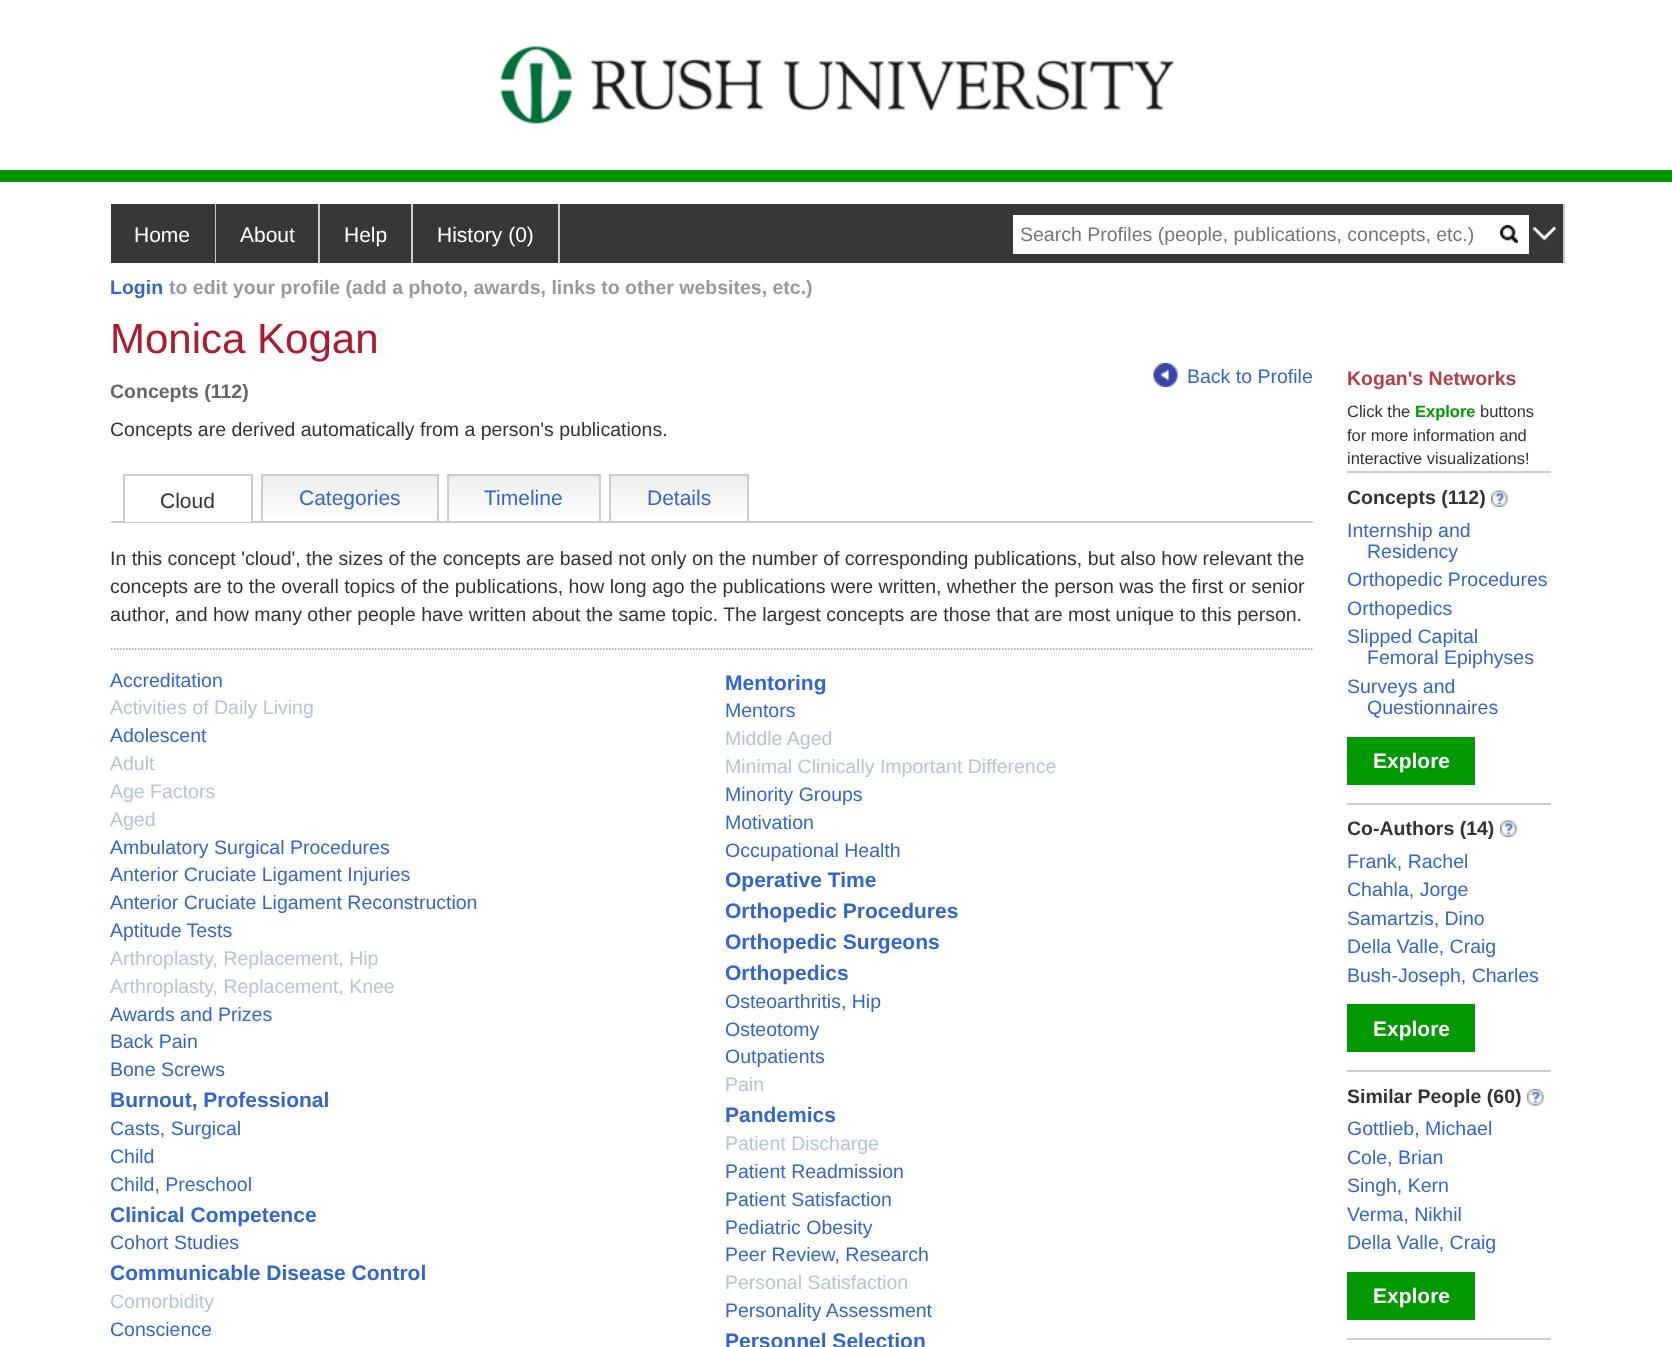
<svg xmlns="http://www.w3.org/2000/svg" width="1672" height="1347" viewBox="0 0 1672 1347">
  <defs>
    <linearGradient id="g1" gradientUnits="userSpaceOnUse" x1="350" y1="476" x2="350" y2="521"><stop offset="0" stop-color="#ededed"/><stop offset="1" stop-color="#ffffff"/></linearGradient>
    <linearGradient id="g2" gradientUnits="userSpaceOnUse" x1="524" y1="476" x2="524" y2="521"><stop offset="0" stop-color="#ededed"/><stop offset="1" stop-color="#ffffff"/></linearGradient>
    <linearGradient id="g3" gradientUnits="userSpaceOnUse" x1="679" y1="476" x2="679" y2="521"><stop offset="0" stop-color="#ededed"/><stop offset="1" stop-color="#ffffff"/></linearGradient>
  </defs>
  <rect width="100%" height="100%" fill="#ffffff"/>
  <rect x="0" y="170" width="1672" height="12" fill="#009900"/>
  <image x="500" y="46" width="675" height="79" href="img1.png"/>
  <rect x="111" y="204" width="1452" height="59" fill="#383737"/>
  <rect x="215" y="204" width="1" height="59" fill="#cccccc"/>
  <text x="134" y="242" font-family="Liberation Sans" font-size="21" fill="#ffffff">Home</text>
  <rect x="318" y="204" width="2" height="59" fill="#cccccc"/>
  <text x="240" y="242" font-family="Liberation Sans" font-size="21" fill="#ffffff">About</text>
  <rect x="411" y="204" width="2" height="59" fill="#cccccc"/>
  <text x="344" y="242" font-family="Liberation Sans" font-size="21" fill="#ffffff">Help</text>
  <rect x="558" y="204" width="2" height="59" fill="#cccccc"/>
  <text x="437" y="242" font-family="Liberation Sans" font-size="21" fill="#ffffff">History (0)</text>
  <rect x="1013" y="215" width="516" height="39" fill="#ffffff"/>
  <text x="1020" y="241" font-family="Liberation Sans" font-size="19.5" fill="#757575">Search Profiles (people, publications, concepts, etc.)</text>
  <image x="1500" y="225" width="18" height="18" href="img2.png"/>
  <rect x="1563" y="204" width="2" height="59" fill="#cccccc"/>
  <image x="1532" y="226" width="25" height="15" href="img3.png"/>
  <text x="110" y="294" font-family="Liberation Sans" font-size="19.5" font-weight="bold" fill="#3366cc">Login</text>
  <text x="169" y="294" font-family="Liberation Sans" font-size="19.5" font-weight="bold" fill="#999999">to edit your profile (add a photo, awards, links to other websites, etc.)</text>
  <text x="110" y="353" font-family="Liberation Sans" font-size="42" fill="#ac1b30">Monica Kogan</text>
  <image x="1153" y="363" width="25" height="24" href="img4.png"/>
  <text x="1187" y="383" font-family="Liberation Sans" font-size="19.5" fill="#3366cc">Back to Profile</text>
  <text x="110" y="398" font-family="Liberation Sans" font-size="19.5" font-weight="bold" fill="#666666">Concepts (112)</text>
  <text x="110" y="436" font-family="Liberation Sans" font-size="19.5" fill="#333333">Concepts are derived automatically from a person's publications.</text>
  <rect x="111" y="521" width="1202" height="2" fill="#cccccc"/>
  <rect x="125" y="521" width="126" height="1" fill="#ffffff"/>
  <rect x="123" y="474" width="129" height="2" fill="#cccccc"/>
  <rect x="251" y="474" width="2" height="48" fill="#cccccc"/>
  <rect x="123" y="474" width="2" height="48" fill="#cccccc"/>
  <text x="160" y="508" font-family="Liberation Sans" font-size="21" fill="#333333">Cloud</text>
  <rect x="263" y="476" width="174" height="39" fill="url(#g1)"/>
  <rect x="261" y="474" width="177" height="2" fill="#cccccc"/>
  <rect x="437" y="474" width="2" height="47" fill="#cccccc"/>
  <rect x="261" y="474" width="2" height="47" fill="#cccccc"/>
  <text x="299" y="505" font-family="Liberation Sans" font-size="21" fill="#3366cc">Categories</text>
  <rect x="449" y="476" width="150" height="39" fill="url(#g2)"/>
  <rect x="447" y="474" width="153" height="2" fill="#cccccc"/>
  <rect x="599" y="474" width="2" height="47" fill="#cccccc"/>
  <rect x="447" y="474" width="2" height="47" fill="#cccccc"/>
  <text x="484" y="505" font-family="Liberation Sans" font-size="21" fill="#3366cc">Timeline</text>
  <rect x="611" y="476" width="136" height="39" fill="url(#g3)"/>
  <rect x="609" y="474" width="140" height="2" fill="#cccccc"/>
  <rect x="747" y="474" width="2" height="47" fill="#cccccc"/>
  <rect x="609" y="474" width="2" height="47" fill="#cccccc"/>
  <text x="647" y="505" font-family="Liberation Sans" font-size="21" fill="#3366cc">Details</text>
  <path d="M111 649H1312.5" fill="none" stroke="#999999" stroke-width="1.5" stroke-dasharray="1.5 1.5"/>
  <text x="110" y="565" font-family="Liberation Sans" font-size="19.5" fill="#333333">In this concept 'cloud', the sizes of the concepts are based not only on the number of corresponding publications, but also how relevant the</text>
  <text x="110" y="593" font-family="Liberation Sans" font-size="19.5" fill="#333333">concepts are to the overall topics of the publications, how long ago the publications were written, whether the person was the first or senior</text>
  <text x="110" y="621" font-family="Liberation Sans" font-size="19.5" fill="#333333">author, and how many other people have written about the same topic. The largest concepts are those that are most unique to this person.</text>
  <text x="110" y="687" font-family="Liberation Sans" font-size="19.5" fill="#3366cc">Accreditation</text>
  <text x="110" y="714" font-family="Liberation Sans" font-size="19.5" fill="#b7c3db">Activities of Daily Living</text>
  <text x="110" y="742" font-family="Liberation Sans" font-size="19.5" fill="#3366cc">Adolescent</text>
  <text x="110" y="770" font-family="Liberation Sans" font-size="19.5" fill="#b7c3db">Adult</text>
  <text x="110" y="798" font-family="Liberation Sans" font-size="19.5" fill="#b7c3db">Age Factors</text>
  <text x="110" y="826" font-family="Liberation Sans" font-size="19.5" fill="#b7c3db">Aged</text>
  <text x="110" y="854" font-family="Liberation Sans" font-size="19.5" fill="#3366cc">Ambulatory Surgical Procedures</text>
  <text x="110" y="881" font-family="Liberation Sans" font-size="19.5" fill="#3366cc">Anterior Cruciate Ligament Injuries</text>
  <text x="110" y="909" font-family="Liberation Sans" font-size="19.5" fill="#3366cc">Anterior Cruciate Ligament Reconstruction</text>
  <text x="110" y="937" font-family="Liberation Sans" font-size="19.5" fill="#3366cc">Aptitude Tests</text>
  <text x="110" y="965" font-family="Liberation Sans" font-size="19.5" fill="#b7c3db">Arthroplasty, Replacement, Hip</text>
  <text x="110" y="993" font-family="Liberation Sans" font-size="19.5" fill="#b7c3db">Arthroplasty, Replacement, Knee</text>
  <text x="110" y="1021" font-family="Liberation Sans" font-size="19.5" fill="#3366cc">Awards and Prizes</text>
  <text x="110" y="1048" font-family="Liberation Sans" font-size="19.5" fill="#3366cc">Back Pain</text>
  <text x="110" y="1076" font-family="Liberation Sans" font-size="19.5" fill="#3366cc">Bone Screws</text>
  <text x="110" y="1107" font-family="Liberation Sans" font-size="21" font-weight="bold" fill="#3366cc">Burnout, Professional</text>
  <text x="110" y="1135" font-family="Liberation Sans" font-size="19.5" fill="#3366cc">Casts, Surgical</text>
  <text x="110" y="1163" font-family="Liberation Sans" font-size="19.5" fill="#3366cc">Child</text>
  <text x="110" y="1191" font-family="Liberation Sans" font-size="19.5" fill="#3366cc">Child, Preschool</text>
  <text x="110" y="1222" font-family="Liberation Sans" font-size="21" font-weight="bold" fill="#3366cc">Clinical Competence</text>
  <text x="110" y="1249" font-family="Liberation Sans" font-size="19.5" fill="#3366cc">Cohort Studies</text>
  <text x="110" y="1280" font-family="Liberation Sans" font-size="21" font-weight="bold" fill="#3366cc">Communicable Disease Control</text>
  <text x="110" y="1308" font-family="Liberation Sans" font-size="19.5" fill="#b7c3db">Comorbidity</text>
  <text x="110" y="1336" font-family="Liberation Sans" font-size="19.5" fill="#3366cc">Conscience</text>
  <text x="725" y="690" font-family="Liberation Sans" font-size="21" font-weight="bold" fill="#3366cc">Mentoring</text>
  <text x="725" y="717" font-family="Liberation Sans" font-size="19.5" fill="#3366cc">Mentors</text>
  <text x="725" y="745" font-family="Liberation Sans" font-size="19.5" fill="#b7c3db">Middle Aged</text>
  <text x="725" y="773" font-family="Liberation Sans" font-size="19.5" fill="#b7c3db">Minimal Clinically Important Difference</text>
  <text x="725" y="801" font-family="Liberation Sans" font-size="19.5" fill="#3366cc">Minority Groups</text>
  <text x="725" y="829" font-family="Liberation Sans" font-size="19.5" fill="#3366cc">Motivation</text>
  <text x="725" y="857" font-family="Liberation Sans" font-size="19.5" fill="#3366cc">Occupational Health</text>
  <text x="725" y="887" font-family="Liberation Sans" font-size="21" font-weight="bold" fill="#3366cc">Operative Time</text>
  <text x="725" y="918" font-family="Liberation Sans" font-size="21" font-weight="bold" fill="#3366cc">Orthopedic Procedures</text>
  <text x="725" y="949" font-family="Liberation Sans" font-size="21" font-weight="bold" fill="#3366cc">Orthopedic Surgeons</text>
  <text x="725" y="980" font-family="Liberation Sans" font-size="21" font-weight="bold" fill="#3366cc">Orthopedics</text>
  <text x="725" y="1008" font-family="Liberation Sans" font-size="19.5" fill="#3366cc">Osteoarthritis, Hip</text>
  <text x="725" y="1036" font-family="Liberation Sans" font-size="19.5" fill="#3366cc">Osteotomy</text>
  <text x="725" y="1063" font-family="Liberation Sans" font-size="19.5" fill="#3366cc">Outpatients</text>
  <text x="725" y="1091" font-family="Liberation Sans" font-size="19.5" fill="#b7c3db">Pain</text>
  <text x="725" y="1122" font-family="Liberation Sans" font-size="21" font-weight="bold" fill="#3366cc">Pandemics</text>
  <text x="725" y="1150" font-family="Liberation Sans" font-size="19.5" fill="#b7c3db">Patient Discharge</text>
  <text x="725" y="1178" font-family="Liberation Sans" font-size="19.5" fill="#3366cc">Patient Readmission</text>
  <text x="725" y="1206" font-family="Liberation Sans" font-size="19.5" fill="#3366cc">Patient Satisfaction</text>
  <text x="725" y="1234" font-family="Liberation Sans" font-size="19.5" fill="#3366cc">Pediatric Obesity</text>
  <text x="725" y="1261" font-family="Liberation Sans" font-size="19.5" fill="#3366cc">Peer Review, Research</text>
  <text x="725" y="1289" font-family="Liberation Sans" font-size="19.5" fill="#b7c3db">Personal Satisfaction</text>
  <text x="725" y="1317" font-family="Liberation Sans" font-size="19.5" fill="#3366cc">Personality Assessment</text>
  <text x="725" y="1348" font-family="Liberation Sans" font-size="21" font-weight="bold" fill="#3366cc">Personnel Selection</text>
  <text x="1347" y="385" font-family="Liberation Sans" font-size="19.5" font-weight="bold" fill="#b23f45">Kogan's Networks</text>
  <text x="1347" y="417" font-family="Liberation Sans" font-size="16.5" fill="#333333">Click the</text>
  <text x="1415" y="417" font-family="Liberation Sans" font-size="16.5" font-weight="bold" fill="#009900">Explore</text>
  <text x="1480" y="417" font-family="Liberation Sans" font-size="16.5" fill="#333333">buttons</text>
  <text x="1347" y="441" font-family="Liberation Sans" font-size="16.5" fill="#333333">for more information and</text>
  <text x="1347" y="464" font-family="Liberation Sans" font-size="16.5" fill="#333333">interactive visualizations!</text>
  <rect x="1347" y="471" width="204" height="2" fill="#cccccc"/>
  <text x="1347" y="504" font-family="Liberation Sans" font-size="19.5" font-weight="bold" fill="#333333">Concepts (112)</text>
  <image x="1491" y="490" width="17" height="17" href="img5.png"/>
  <text x="1347" y="537" font-family="Liberation Sans" font-size="19.5" fill="#3366cc">Internship and</text>
  <text x="1367" y="558" font-family="Liberation Sans" font-size="19.5" fill="#3366cc">Residency</text>
  <text x="1347" y="586" font-family="Liberation Sans" font-size="19.5" fill="#3366cc">Orthopedic Procedures</text>
  <text x="1347" y="615" font-family="Liberation Sans" font-size="19.5" fill="#3366cc">Orthopedics</text>
  <text x="1347" y="643" font-family="Liberation Sans" font-size="19.5" fill="#3366cc">Slipped Capital</text>
  <text x="1367" y="664" font-family="Liberation Sans" font-size="19.5" fill="#3366cc">Femoral Epiphyses</text>
  <text x="1347" y="693" font-family="Liberation Sans" font-size="19.5" fill="#3366cc">Surveys and</text>
  <text x="1367" y="714" font-family="Liberation Sans" font-size="19.5" fill="#3366cc">Questionnaires</text>
  <rect x="1347" y="737" width="128" height="48" fill="#009900"/>
  <text x="1373" y="768" font-family="Liberation Sans" font-size="21" font-weight="bold" fill="#ffffff">Explore</text>
  <rect x="1347" y="803" width="204" height="2" fill="#cccccc"/>
  <text x="1347" y="835" font-family="Liberation Sans" font-size="19.5" font-weight="bold" fill="#333333">Co-Authors (14)</text>
  <image x="1500" y="820" width="17" height="17" href="img5.png"/>
  <text x="1347" y="868" font-family="Liberation Sans" font-size="19.5" fill="#3366cc">Frank, Rachel</text>
  <text x="1347" y="896" font-family="Liberation Sans" font-size="19.5" fill="#3366cc">Chahla, Jorge</text>
  <text x="1347" y="925" font-family="Liberation Sans" font-size="19.5" fill="#3366cc">Samartzis, Dino</text>
  <text x="1347" y="953" font-family="Liberation Sans" font-size="19.5" fill="#3366cc">Della Valle, Craig</text>
  <text x="1347" y="982" font-family="Liberation Sans" font-size="19.5" fill="#3366cc">Bush-Joseph, Charles</text>
  <rect x="1347" y="1004" width="128" height="48" fill="#009900"/>
  <text x="1373" y="1036" font-family="Liberation Sans" font-size="21" font-weight="bold" fill="#ffffff">Explore</text>
  <rect x="1347" y="1070" width="204" height="2" fill="#cccccc"/>
  <text x="1347" y="1103" font-family="Liberation Sans" font-size="19.5" font-weight="bold" fill="#333333">Similar People (60)</text>
  <image x="1527" y="1089" width="17" height="17" href="img6.png"/>
  <text x="1347" y="1135" font-family="Liberation Sans" font-size="19.5" fill="#3366cc">Gottlieb, Michael</text>
  <text x="1347" y="1164" font-family="Liberation Sans" font-size="19.5" fill="#3366cc">Cole, Brian</text>
  <text x="1347" y="1192" font-family="Liberation Sans" font-size="19.5" fill="#3366cc">Singh, Kern</text>
  <text x="1347" y="1221" font-family="Liberation Sans" font-size="19.5" fill="#3366cc">Verma, Nikhil</text>
  <text x="1347" y="1249" font-family="Liberation Sans" font-size="19.5" fill="#3366cc">Della Valle, Craig</text>
  <rect x="1347" y="1272" width="128" height="48" fill="#009900"/>
  <text x="1373" y="1303" font-family="Liberation Sans" font-size="21" font-weight="bold" fill="#ffffff">Explore</text>
  <rect x="1347" y="1338" width="204" height="2" fill="#cccccc"/>
</svg>
